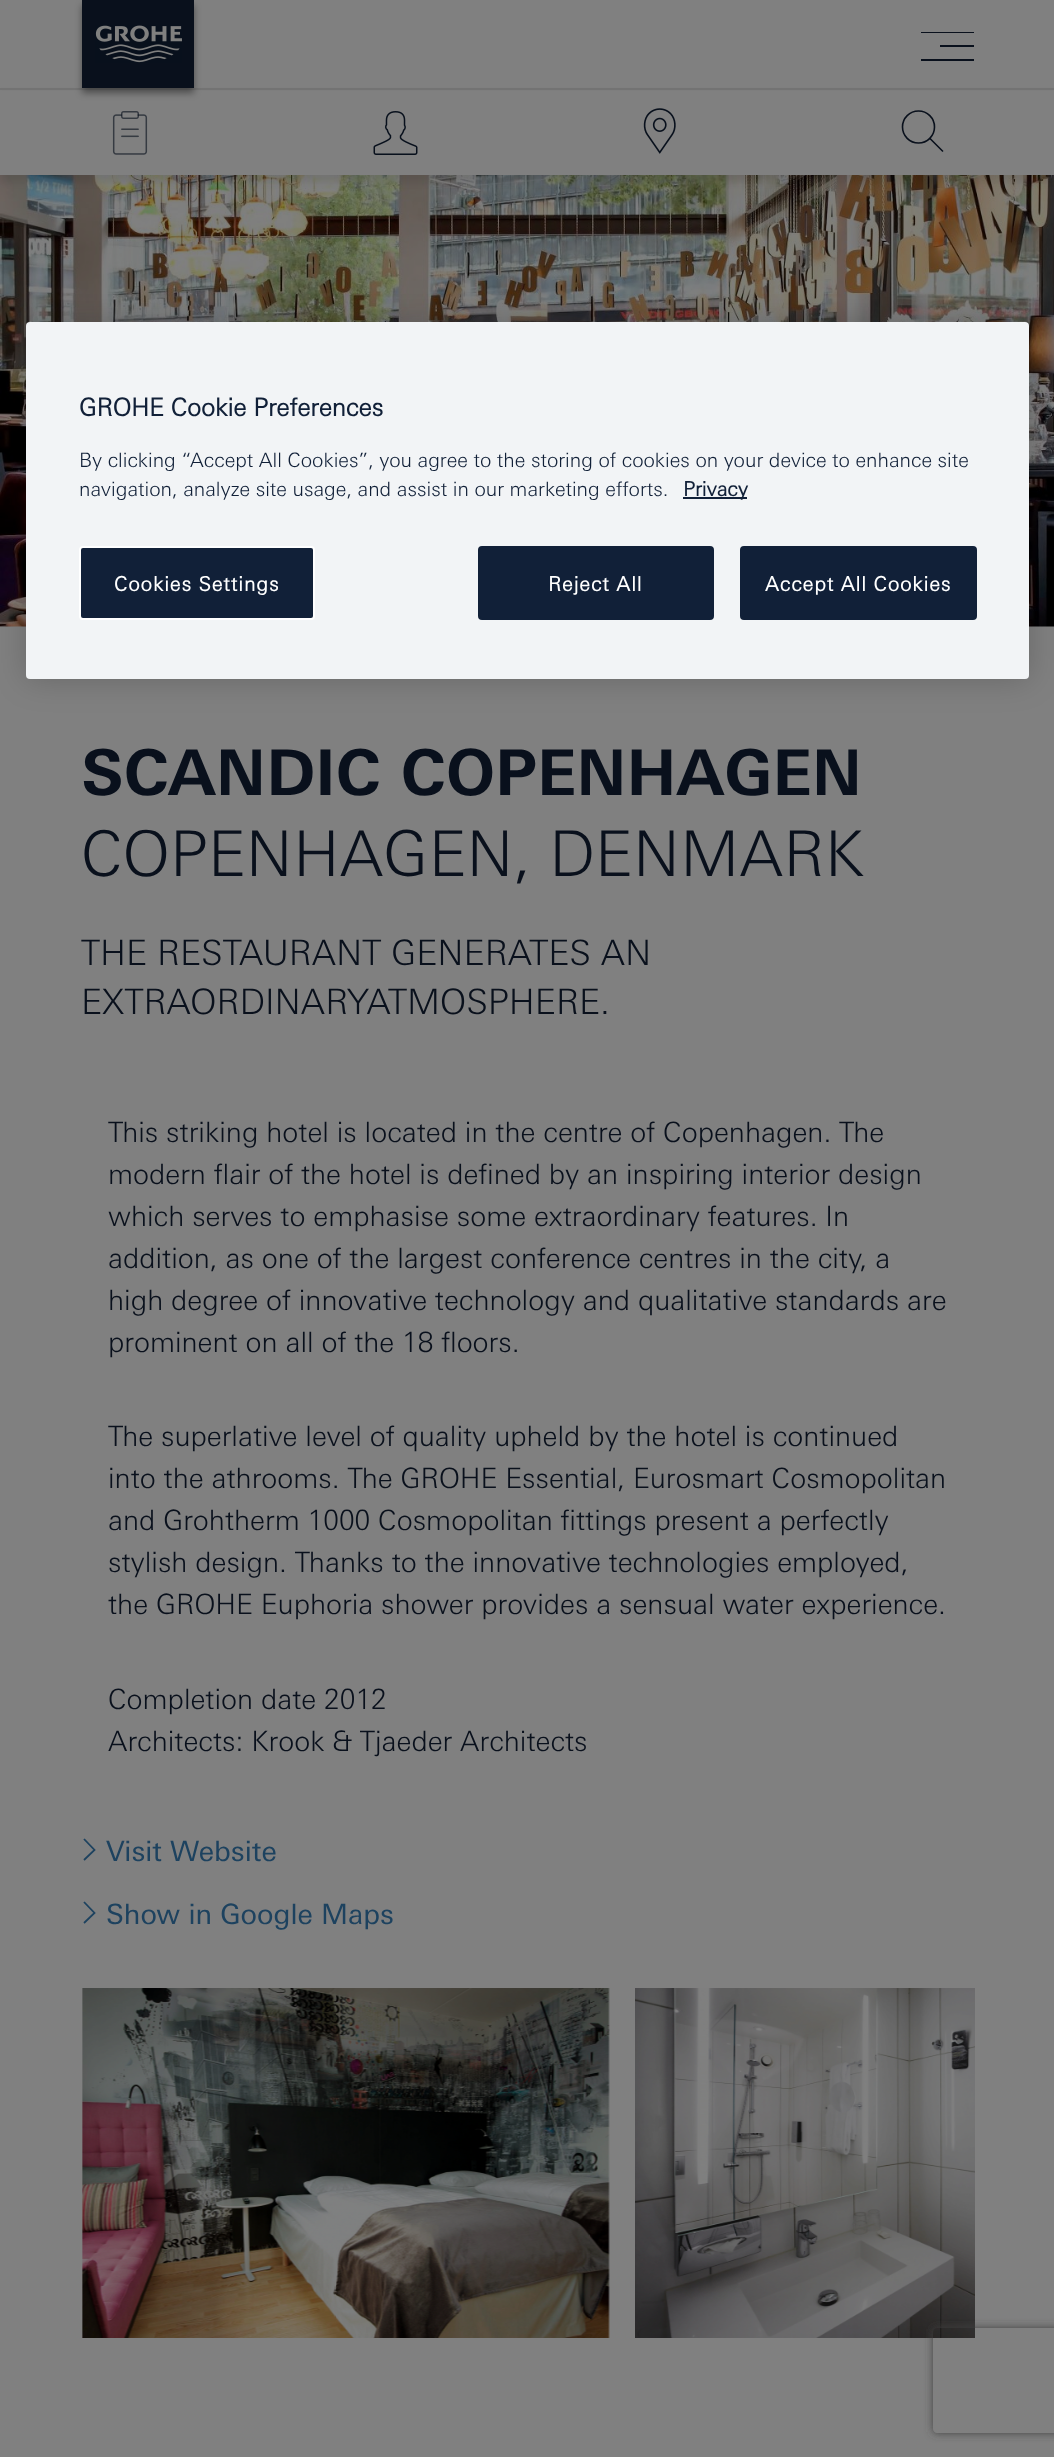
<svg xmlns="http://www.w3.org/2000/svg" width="1054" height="2457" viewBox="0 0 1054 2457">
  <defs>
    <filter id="blur1" x="-50%" y="-200%" width="200%" height="500%"><feGaussianBlur stdDeviation="16"/></filter>
    <filter id="blur2" x="-50%" y="-200%" width="200%" height="500%"><feGaussianBlur stdDeviation="4.5"/></filter>
    <filter id="blur3" x="-50%" y="-200%" width="200%" height="500%"><feGaussianBlur stdDeviation="3.5"/></filter>
    <clipPath id="clip1"><rect x="921" y="32" width="54" height="29"/></clipPath>
    <clipPath id="clip2"><path d="M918 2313H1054V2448H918ZM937 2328H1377C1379 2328 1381 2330 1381 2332V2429C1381 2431 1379 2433 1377 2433H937C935 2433 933 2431 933 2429V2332C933 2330 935 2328 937 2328Z" clip-rule="evenodd"/></clipPath>
  </defs>
  <rect width="100%" height="100%" fill="#808080"/>
  <image x="0" y="175" width="1054" height="452" href="img5.png"/>
  <rect x="26" y="322" width="1003" height="357" rx="4" fill="#000000" fill-opacity="0.2" filter="url(#blur1)"/>
  <rect x="26" y="322" width="1003" height="357" rx="4" fill="#f2f4f6"/>
  <text x="79" y="416" font-family="'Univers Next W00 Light'" font-size="24.5" font-weight="bold" fill="#112038">GROHE Cookie Preferences</text>
  <text x="79" y="467" font-family="'Univers Next W00 Light'" font-size="19.9" font-weight="300" fill="#112038">By clicking “Accept All Cookies”, you agree to the storing of cookies on your device to enhance site</text>
  <text x="79" y="496" font-family="'Univers Next W00 Light'" font-size="19.9" font-weight="300" fill="#112038">navigation, analyze site usage, and assist in our marketing efforts.</text>
  <rect x="683" y="497" width="64" height="2" fill="#112038"/>
  <text x="683" y="496" font-family="'Univers Next W00 Light'" font-size="19.9" font-weight="bold" fill="#112038">Privacy</text>
  <rect x="80" y="547" width="234" height="72" rx="3" fill="#112038" stroke="#ffffff" stroke-width="2"/>
  <text x="114" y="591" font-family="'Univers Next W00 Light'" font-size="19.9" font-weight="bold" letter-spacing="1" fill="#ffffff">Cookies Settings</text>
  <rect x="479" y="547" width="234" height="72" rx="3" fill="#112038" stroke="#112038" stroke-width="2"/>
  <text x="548" y="591" font-family="'Univers Next W00 Light'" font-size="19.9" font-weight="bold" letter-spacing="1" fill="#ffffff">Reject All</text>
  <rect x="741" y="547" width="235" height="72" rx="3" fill="#112038" stroke="#112038" stroke-width="2"/>
  <text x="765" y="591" font-family="'Univers Next W00 Light'" font-size="19.9" font-weight="bold" letter-spacing="1" fill="#ffffff">Accept All Cookies</text>
  <rect x="0" y="95" width="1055" height="87" fill="#000000" fill-opacity="0.1" filter="url(#blur2)"/>
  <rect x="0" y="91" width="1054" height="84" fill="#808080"/>
  <rect x="0" y="88" width="1054" height="2" fill="#737373"/>
  <rect x="82" y="5" width="112" height="88" fill="#000000" fill-opacity="0.4" filter="url(#blur3)"/>
  <rect x="82" y="0" width="112" height="88" fill="#09101c"/>
  <image x="95" y="25" width="87" height="38" href="img1.png"/>
  <g clip-path="url(#clip1)">
    <path d="M920 32H974V33H920ZM940 45H974V47H940ZM920 59H974V61H920Z" fill="#09101c"/>
  </g>
  <image x="112" y="111" width="36" height="44" href="img2.png"/>
  <image x="373" y="111" width="45" height="44" href="img3.png"/>
  <image x="643" y="108" width="33" height="46" href="img4.png"/>
  <path d="M943 151.5L929.5 138Z" fill="none" stroke="#09101c" stroke-width="1.6"/>
  <circle cx="918.5" cy="127" r="16" fill="none" stroke="#09101c" stroke-width="1.6"/>
  <text x="81" y="795" font-family="'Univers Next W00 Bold'" font-size="63" font-weight="bold" fill="#09101c">SCANDIC COPENHAGEN</text>
  <text x="81" y="876" font-family="'Univers Next W00 Light'" font-size="63" font-weight="300" fill="#09101c">COPENHAGEN, DENMARK</text>
  <text x="81" y="965" font-family="'Univers Next W00 Light'" font-size="35" font-weight="300" fill="#09101c">THE RESTAURANT GENERATES AN</text>
  <text x="81" y="1014" font-family="'Univers Next W00 Light'" font-size="35" font-weight="300" fill="#09101c">EXTRAORDINARYATMOSPHERE.</text>
  <text x="108" y="1142" font-family="'Univers Next W00 Light'" font-size="28" font-weight="300" fill="#09101c">This striking hotel is located in the centre of Copenhagen. The</text>
  <text x="108" y="1184" font-family="'Univers Next W00 Light'" font-size="28" font-weight="300" fill="#09101c">modern flair of the hotel is defined by an inspiring interior design</text>
  <text x="108" y="1226" font-family="'Univers Next W00 Light'" font-size="28" font-weight="300" fill="#09101c">which serves to emphasise some extraordinary features. In</text>
  <text x="108" y="1268" font-family="'Univers Next W00 Light'" font-size="28" font-weight="300" fill="#09101c">addition, as one of the largest conference centres in the city, a</text>
  <text x="108" y="1310" font-family="'Univers Next W00 Light'" font-size="28" font-weight="300" fill="#09101c">high degree of innovative technology and qualitative standards are</text>
  <text x="108" y="1352" font-family="'Univers Next W00 Light'" font-size="28" font-weight="300" fill="#09101c">prominent on all of the 18 floors.</text>
  <text x="108" y="1446" font-family="'Univers Next W00 Light'" font-size="28" font-weight="300" fill="#09101c">The superlative level of quality upheld by the hotel is continued</text>
  <text x="108" y="1488" font-family="'Univers Next W00 Light'" font-size="28" font-weight="300" fill="#09101c">into the athrooms. The GROHE Essential, Eurosmart Cosmopolitan</text>
  <text x="108" y="1530" font-family="'Univers Next W00 Light'" font-size="28" font-weight="300" fill="#09101c">and Grohtherm 1000 Cosmopolitan fittings present a perfectly</text>
  <text x="108" y="1572" font-family="'Univers Next W00 Light'" font-size="28" font-weight="300" fill="#09101c">stylish design. Thanks to the innovative technologies employed,</text>
  <text x="108" y="1614" font-family="'Univers Next W00 Light'" font-size="28" font-weight="300" fill="#09101c">the GROHE Euphoria shower provides a sensual water experience.</text>
  <text x="108" y="1709" font-family="'Univers Next W00 Light'" font-size="28" font-weight="300" fill="#09101c">Completion date 2012</text>
  <text x="108" y="1751" font-family="'Univers Next W00 Light'" font-size="28" font-weight="300" fill="#09101c">Architects: Krook &amp; Tjaeder Architects</text>
  <path d="M84 1839L94.5 1850L84 1860" fill="none" stroke="#1d425f" stroke-width="1.8"/>
  <text x="106" y="1861" font-family="'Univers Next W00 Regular'" font-size="28" fill="#1d425f">Visit Website</text>
  <path d="M84 1902L94.5 1913L84 1923" fill="none" stroke="#1d425f" stroke-width="1.8"/>
  <text x="106" y="1924" font-family="'Univers Next W00 Regular'" font-size="28" fill="#1d425f">Show in Google Maps</text>
  <image x="82" y="1988" width="528" height="350" href="img6.png"/>
  <image x="635" y="1988" width="340" height="350" href="img7.png"/>
  <g clip-path="url(#clip2)">
    <rect x="933" y="2328" width="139" height="105" rx="4" fill="#404040" filter="url(#blur2)"/>
  </g>
</svg>
